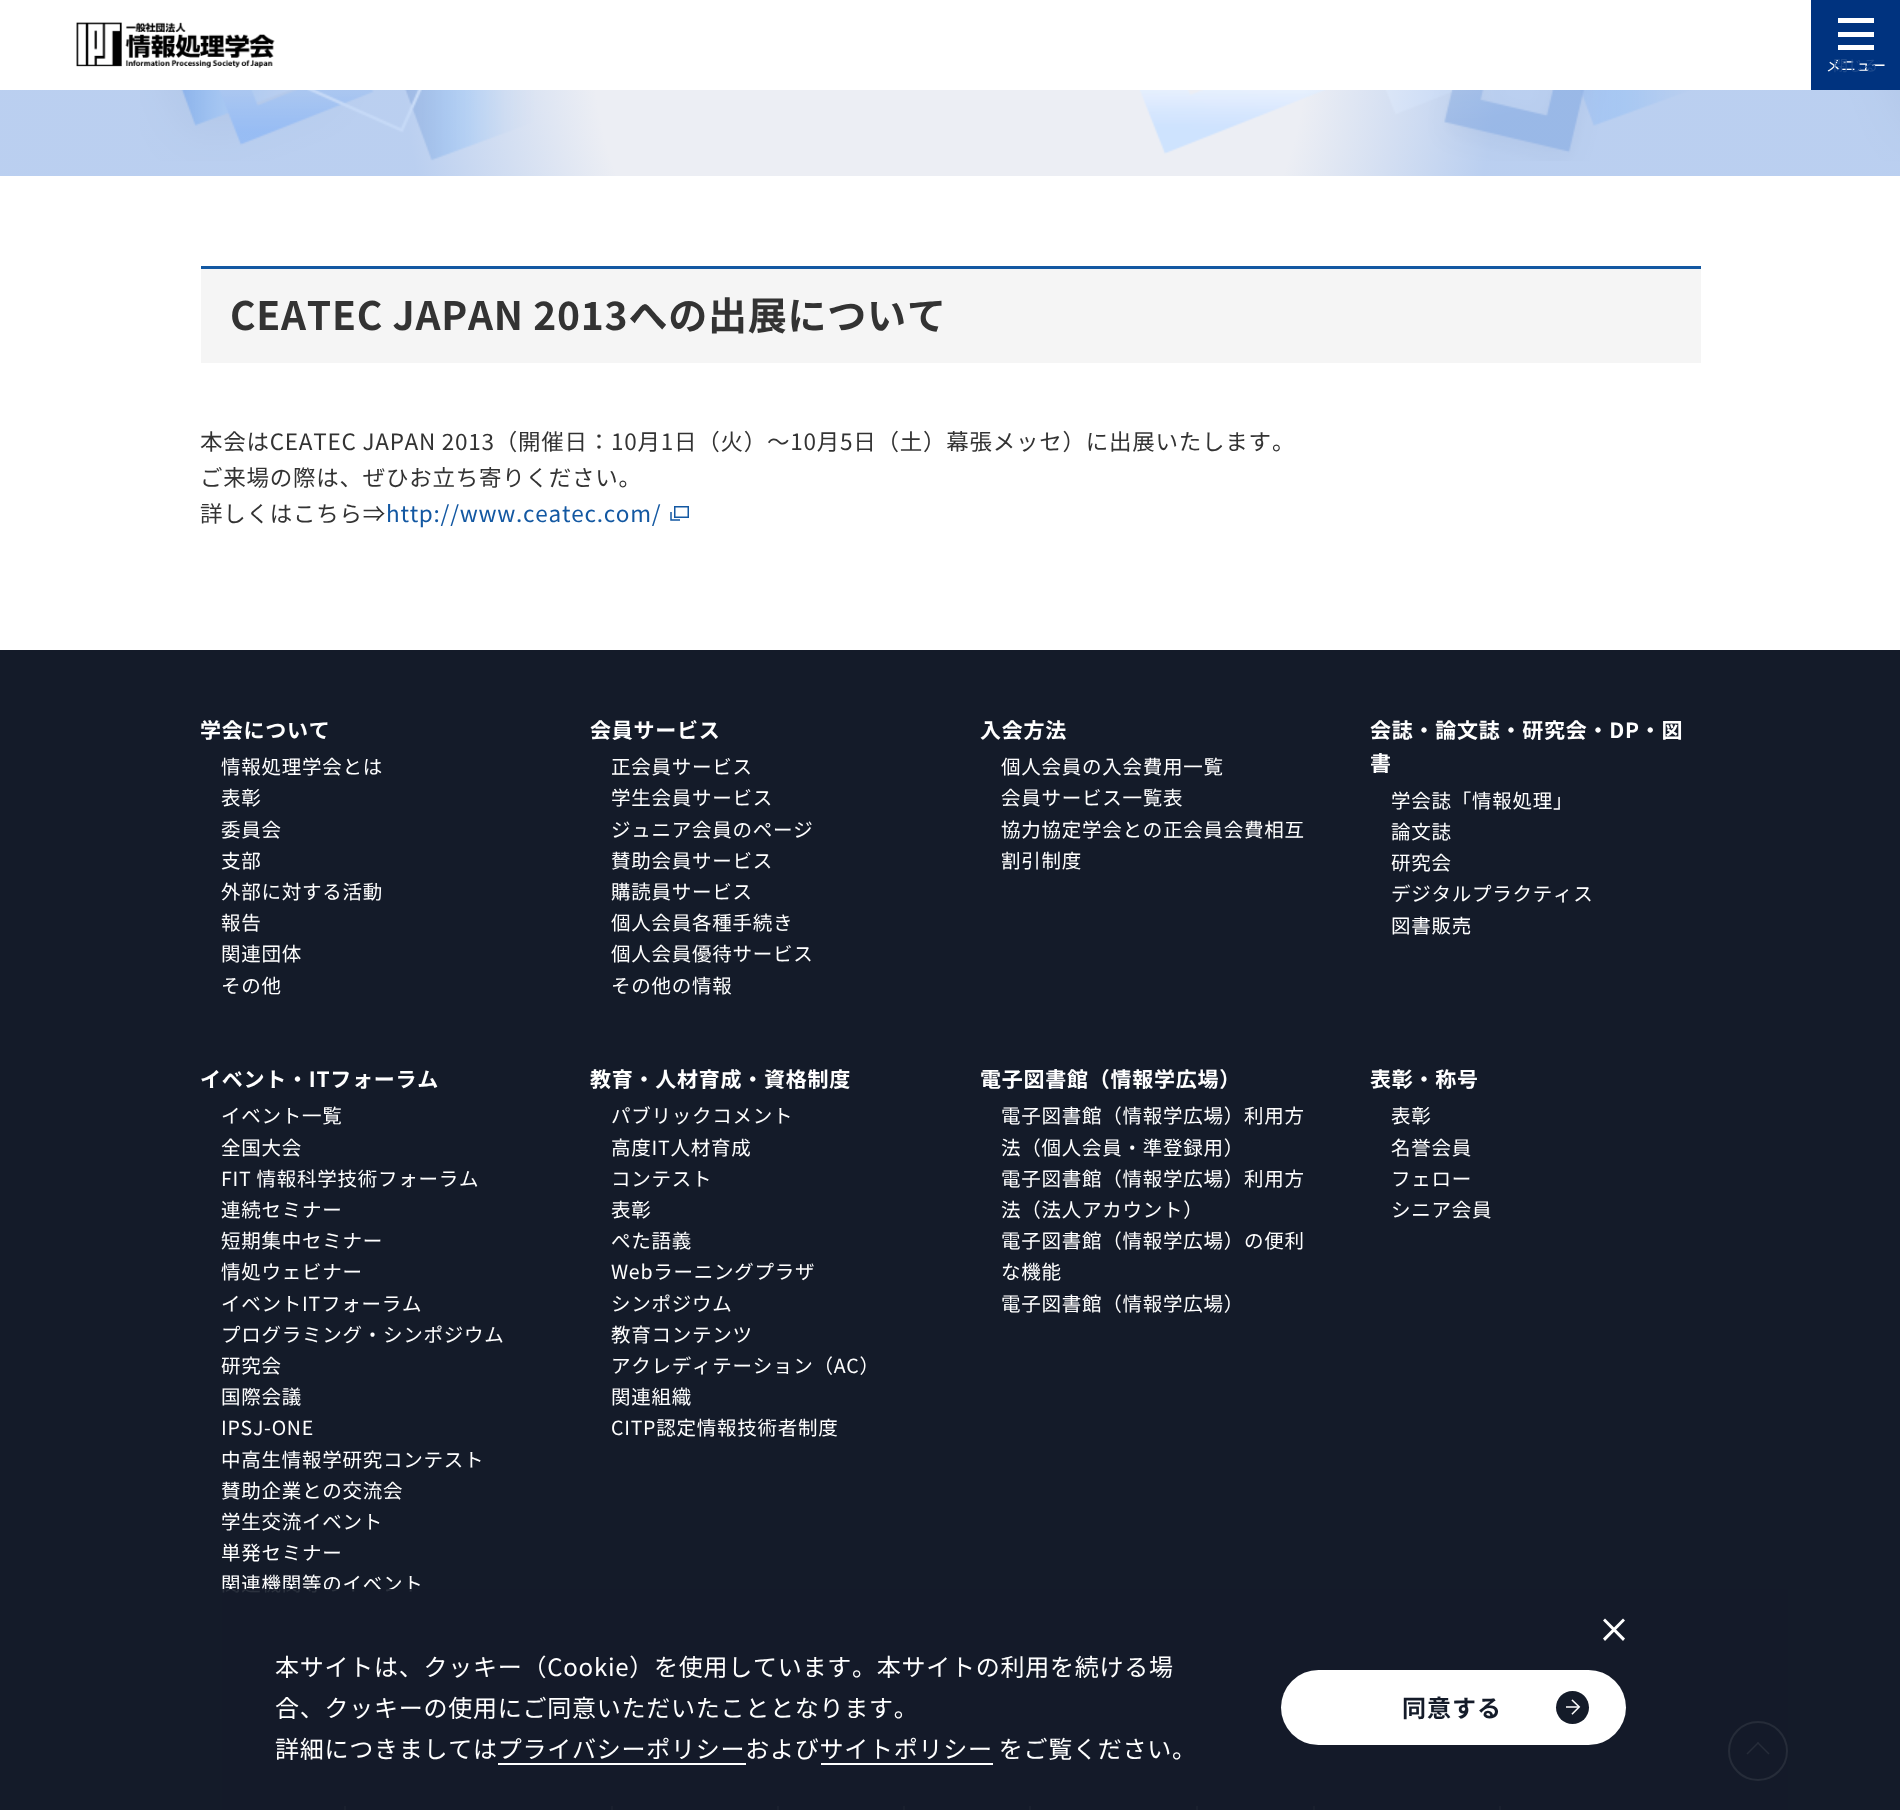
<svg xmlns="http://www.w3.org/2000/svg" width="1900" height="1810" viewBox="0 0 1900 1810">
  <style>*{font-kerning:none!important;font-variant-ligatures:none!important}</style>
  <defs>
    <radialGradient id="g1" gradientUnits="userSpaceOnUse" cx="950" cy="48" r="548"><stop offset="0.65" stop-color="#70a1ea" stop-opacity="0"/><stop offset="1" stop-color="#70a1ea" stop-opacity="0.4"/></radialGradient>
  </defs>
  <rect width="100%" height="100%" fill="#ffffff"/>
  <image x="76" y="22" width="199" height="46" href="img1.png"/>
  <rect x="1811" y="0" width="89" height="90" fill="#00337f"/>
  <rect x="1838" y="32" width="36" height="5" fill="#ffffff"/>
  <rect x="1838" y="18" width="36" height="5" fill="#ffffff"/>
  <rect x="1838" y="45" width="36" height="5" fill="#ffffff"/>
  <text x="1826" y="71" font-family="Noto Sans JP" font-size="15" fill="#ffffff">メニュー</text>
  <text x="1833" y="71" font-family="Noto Sans JP" font-size="15" fill="#1e4b8e">閉じる</text>
  <rect x="0" y="90" width="1900" height="86" fill="#eceef4"/>
  <image x="140" y="90" width="1760" height="71" href="img2.png"/>
  <rect x="0" y="90" width="1900" height="86" fill="url(#g1)"/>
  <rect x="201" y="269" width="1500" height="94" fill="#f5f5f5"/>
  <rect x="201" y="266" width="1500" height="3" fill="#1358a2"/>
  <text x="230" y="330" font-family="Noto Sans JP" font-size="39" font-weight="bold" letter-spacing="0.75" fill="#333333">CEATEC JAPAN 2013への出展につい</text>
  <text x="907" y="330" font-family="Noto Sans JP" font-size="39" font-weight="bold" letter-spacing="0.75" fill="#333333">て</text>
  <text x="200" y="450" font-family="Noto Sans JP" font-size="22.5" letter-spacing="0.75" fill="#333333">本会はCEATEC JAPAN 2013（開催日：10月1日（火）〜10月5日（土）幕張メッセ）に出展いたします</text>
  <text x="1272" y="450" font-family="Noto Sans JP" font-size="22.5" letter-spacing="0.75" fill="#333333">。</text>
  <text x="200" y="486" font-family="Noto Sans JP" font-size="22.5" letter-spacing="0.75" fill="#333333">ご来場の際は、ぜひお立ち寄りください。</text>
  <text x="200" y="522" font-family="Noto Sans JP" font-size="22.5" letter-spacing="0.75" fill="#333333">詳しくはこちら⇒</text>
  <text x="386" y="522" font-family="Noto Sans JP" font-size="22.5" letter-spacing="0.75" fill="#1358a2">http://www.ceatec.com/</text>
  <rect x="674.75" y="506.75" width="13.5" height="10.5" fill="none" stroke="#1358a2" stroke-width="1.5"/>
  <path d="M671 512V520H680" fill="none" stroke="#1358a2" stroke-width="1.5"/>
  <rect x="0" y="650" width="1900" height="1160" fill="#141b29"/>
  <text x="200" y="738" font-family="Noto Sans JP" font-size="21" font-weight="bold" letter-spacing="0.75" fill="#ffffff">学会について</text>
  <text x="221" y="774" font-family="Noto Sans JP" font-size="19.5" letter-spacing="0.75" fill="#ffffff">情報処理学会とは</text>
  <text x="221" y="805" font-family="Noto Sans JP" font-size="19.5" letter-spacing="0.75" fill="#ffffff">表彰</text>
  <text x="221" y="837" font-family="Noto Sans JP" font-size="19.5" letter-spacing="0.75" fill="#ffffff">委員会</text>
  <text x="221" y="868" font-family="Noto Sans JP" font-size="19.5" letter-spacing="0.75" fill="#ffffff">支部</text>
  <text x="221" y="899" font-family="Noto Sans JP" font-size="19.5" letter-spacing="0.75" fill="#ffffff">外部に対する活動</text>
  <text x="221" y="930" font-family="Noto Sans JP" font-size="19.5" letter-spacing="0.75" fill="#ffffff">報告</text>
  <text x="221" y="961" font-family="Noto Sans JP" font-size="19.5" letter-spacing="0.75" fill="#ffffff">関連団体</text>
  <text x="221" y="993" font-family="Noto Sans JP" font-size="19.5" letter-spacing="0.75" fill="#ffffff">その他</text>
  <text x="590" y="738" font-family="Noto Sans JP" font-size="21" font-weight="bold" letter-spacing="0.75" fill="#ffffff">会員サービス</text>
  <text x="611" y="774" font-family="Noto Sans JP" font-size="19.5" letter-spacing="0.75" fill="#ffffff">正会員サービス</text>
  <text x="611" y="805" font-family="Noto Sans JP" font-size="19.5" letter-spacing="0.75" fill="#ffffff">学生会員サービス</text>
  <text x="611" y="837" font-family="Noto Sans JP" font-size="19.5" letter-spacing="0.75" fill="#ffffff">ジュニア会員のページ</text>
  <text x="611" y="868" font-family="Noto Sans JP" font-size="19.5" letter-spacing="0.75" fill="#ffffff">賛助会員サービス</text>
  <text x="611" y="899" font-family="Noto Sans JP" font-size="19.5" letter-spacing="0.75" fill="#ffffff">購読員サービス</text>
  <text x="611" y="930" font-family="Noto Sans JP" font-size="19.5" letter-spacing="0.75" fill="#ffffff">個人会員各種手続き</text>
  <text x="611" y="961" font-family="Noto Sans JP" font-size="19.5" letter-spacing="0.75" fill="#ffffff">個人会員優待サービス</text>
  <text x="611" y="993" font-family="Noto Sans JP" font-size="19.5" letter-spacing="0.75" fill="#ffffff">その他の情報</text>
  <text x="980" y="738" font-family="Noto Sans JP" font-size="21" font-weight="bold" letter-spacing="0.75" fill="#ffffff">入会方法</text>
  <text x="1001" y="774" font-family="Noto Sans JP" font-size="19.5" letter-spacing="0.75" fill="#ffffff">個人会員の入会費用一覧</text>
  <text x="1001" y="805" font-family="Noto Sans JP" font-size="19.5" letter-spacing="0.75" fill="#ffffff">会員サービス一覧表</text>
  <text x="1001" y="837" font-family="Noto Sans JP" font-size="19.5" letter-spacing="0.75" fill="#ffffff">協力協定学会との正会員会費相互</text>
  <text x="1001" y="868" font-family="Noto Sans JP" font-size="19.5" letter-spacing="0.75" fill="#ffffff">割引制度</text>
  <text x="1370" y="738" font-family="Noto Sans JP" font-size="21" font-weight="bold" letter-spacing="0.75" fill="#ffffff">会誌・論文誌・研究会・DP・図</text>
  <text x="1370" y="771" font-family="Noto Sans JP" font-size="21" font-weight="bold" letter-spacing="0.75" fill="#ffffff">書</text>
  <text x="1391" y="808" font-family="Noto Sans JP" font-size="19.5" letter-spacing="0.75" fill="#ffffff">学会誌「情報処理」</text>
  <text x="1391" y="839" font-family="Noto Sans JP" font-size="19.5" letter-spacing="0.75" fill="#ffffff">論文誌</text>
  <text x="1391" y="870" font-family="Noto Sans JP" font-size="19.5" letter-spacing="0.75" fill="#ffffff">研究会</text>
  <text x="1391" y="901" font-family="Noto Sans JP" font-size="19.5" letter-spacing="0.75" fill="#ffffff">デジタルプラクティス</text>
  <text x="1391" y="933" font-family="Noto Sans JP" font-size="19.5" letter-spacing="0.75" fill="#ffffff">図書販売</text>
  <text x="200" y="1087" font-family="Noto Sans JP" font-size="21" font-weight="bold" letter-spacing="0.75" fill="#ffffff">イベント・ITフォーラム</text>
  <text x="221" y="1123" font-family="Noto Sans JP" font-size="19.5" letter-spacing="0.75" fill="#ffffff">イベント一覧</text>
  <text x="221" y="1155" font-family="Noto Sans JP" font-size="19.5" letter-spacing="0.75" fill="#ffffff">全国大会</text>
  <text x="221" y="1186" font-family="Noto Sans JP" font-size="19.5" letter-spacing="0.75" fill="#ffffff">FIT 情報科学技術フォーラム</text>
  <text x="221" y="1217" font-family="Noto Sans JP" font-size="19.5" letter-spacing="0.75" fill="#ffffff">連続セミナー</text>
  <text x="221" y="1248" font-family="Noto Sans JP" font-size="19.5" letter-spacing="0.75" fill="#ffffff">短期集中セミナー</text>
  <text x="221" y="1279" font-family="Noto Sans JP" font-size="19.5" letter-spacing="0.75" fill="#ffffff">情処ウェビナー</text>
  <text x="221" y="1311" font-family="Noto Sans JP" font-size="19.5" letter-spacing="0.75" fill="#ffffff">イベントITフォーラム</text>
  <text x="221" y="1342" font-family="Noto Sans JP" font-size="19.5" letter-spacing="0.75" fill="#ffffff">プログラミング・シンポジウム</text>
  <text x="221" y="1373" font-family="Noto Sans JP" font-size="19.5" letter-spacing="0.75" fill="#ffffff">研究会</text>
  <text x="221" y="1404" font-family="Noto Sans JP" font-size="19.5" letter-spacing="0.75" fill="#ffffff">国際会議</text>
  <text x="221" y="1435" font-family="Noto Sans JP" font-size="19.5" letter-spacing="0.75" fill="#ffffff">IPSJ-ONE</text>
  <text x="221" y="1467" font-family="Noto Sans JP" font-size="19.5" letter-spacing="0.75" fill="#ffffff">中高生情報学研究コンテスト</text>
  <text x="221" y="1498" font-family="Noto Sans JP" font-size="19.5" letter-spacing="0.75" fill="#ffffff">賛助企業との交流会</text>
  <text x="221" y="1529" font-family="Noto Sans JP" font-size="19.5" letter-spacing="0.75" fill="#ffffff">学生交流イベント</text>
  <text x="221" y="1560" font-family="Noto Sans JP" font-size="19.5" letter-spacing="0.75" fill="#ffffff">単発セミナー</text>
  <text x="221" y="1591" font-family="Noto Sans JP" font-size="19.5" letter-spacing="0.75" fill="#ffffff">関連機関等のイベント</text>
  <text x="590" y="1087" font-family="Noto Sans JP" font-size="21" font-weight="bold" letter-spacing="0.75" fill="#ffffff">教育・人材育成・資格制度</text>
  <text x="611" y="1123" font-family="Noto Sans JP" font-size="19.5" letter-spacing="0.75" fill="#ffffff">パブリックコメント</text>
  <text x="611" y="1155" font-family="Noto Sans JP" font-size="19.5" letter-spacing="0.75" fill="#ffffff">高度IT人材育成</text>
  <text x="611" y="1186" font-family="Noto Sans JP" font-size="19.5" letter-spacing="0.75" fill="#ffffff">コンテスト</text>
  <text x="611" y="1217" font-family="Noto Sans JP" font-size="19.5" letter-spacing="0.75" fill="#ffffff">表彰</text>
  <text x="611" y="1248" font-family="Noto Sans JP" font-size="19.5" letter-spacing="0.75" fill="#ffffff">ぺた語義</text>
  <text x="611" y="1279" font-family="Noto Sans JP" font-size="19.5" letter-spacing="0.75" fill="#ffffff">Webラーニングプラザ</text>
  <text x="611" y="1311" font-family="Noto Sans JP" font-size="19.5" letter-spacing="0.75" fill="#ffffff">シンポジウム</text>
  <text x="611" y="1342" font-family="Noto Sans JP" font-size="19.5" letter-spacing="0.75" fill="#ffffff">教育コンテンツ</text>
  <text x="611" y="1373" font-family="Noto Sans JP" font-size="19.5" letter-spacing="0.75" fill="#ffffff">アクレディテーション（AC）</text>
  <text x="611" y="1404" font-family="Noto Sans JP" font-size="19.5" letter-spacing="0.75" fill="#ffffff">関連組織</text>
  <text x="611" y="1435" font-family="Noto Sans JP" font-size="19.5" letter-spacing="0.75" fill="#ffffff">CITP認定情報技術者制度</text>
  <text x="980" y="1087" font-family="Noto Sans JP" font-size="21" font-weight="bold" letter-spacing="0.75" fill="#ffffff">電子図書館（情報学広場）</text>
  <text x="1001" y="1123" font-family="Noto Sans JP" font-size="19.5" letter-spacing="0.75" fill="#ffffff">電子図書館（情報学広場）利用方</text>
  <text x="1001" y="1155" font-family="Noto Sans JP" font-size="19.5" letter-spacing="0.75" fill="#ffffff">法（個人会員・準登録用）</text>
  <text x="1001" y="1186" font-family="Noto Sans JP" font-size="19.5" letter-spacing="0.75" fill="#ffffff">電子図書館（情報学広場）利用方</text>
  <text x="1001" y="1217" font-family="Noto Sans JP" font-size="19.5" letter-spacing="0.75" fill="#ffffff">法（法人アカウント）</text>
  <text x="1001" y="1248" font-family="Noto Sans JP" font-size="19.5" letter-spacing="0.75" fill="#ffffff">電子図書館（情報学広場）の便利</text>
  <text x="1001" y="1279" font-family="Noto Sans JP" font-size="19.5" letter-spacing="0.75" fill="#ffffff">な機能</text>
  <text x="1001" y="1311" font-family="Noto Sans JP" font-size="19.5" letter-spacing="0.75" fill="#ffffff">電子図書館（情報学広場）</text>
  <text x="1370" y="1087" font-family="Noto Sans JP" font-size="21" font-weight="bold" letter-spacing="0.75" fill="#ffffff">表彰・称号</text>
  <text x="1391" y="1123" font-family="Noto Sans JP" font-size="19.5" letter-spacing="0.75" fill="#ffffff">表彰</text>
  <text x="1391" y="1155" font-family="Noto Sans JP" font-size="19.5" letter-spacing="0.75" fill="#ffffff">名誉会員</text>
  <text x="1391" y="1186" font-family="Noto Sans JP" font-size="19.5" letter-spacing="0.75" fill="#ffffff">フェロー</text>
  <text x="1391" y="1217" font-family="Noto Sans JP" font-size="19.5" letter-spacing="0.75" fill="#ffffff">シニア会員</text>
  <rect x="344" y="1806" width="2" height="4" fill="#51555c"/>
  <rect x="611" y="1806" width="2" height="4" fill="#51555c"/>
  <rect x="777" y="1806" width="2" height="4" fill="#51555c"/>
  <rect x="903" y="1806" width="2" height="4" fill="#51555c"/>
  <rect x="1029" y="1806" width="2" height="4" fill="#51555c"/>
  <rect x="1196" y="1806" width="2" height="4" fill="#51555c"/>
  <rect x="1313" y="1806" width="2" height="4" fill="#51555c"/>
  <rect x="1499" y="1806" width="2" height="4" fill="#51555c"/>
  <circle cx="1758" cy="1751" r="29" fill="none" stroke="#c6c6c6" stroke-width="2"/>
  <path d="M1747.5 1754.5L1746.5 1753.5L1758 1742L1759 1743Z" fill="#c6c6c6"/>
  <path d="M1768.5 1754.5L1757 1743L1758 1742L1769.5 1753.5Z" fill="#c6c6c6"/>
  <rect x="222" y="1589" width="1566" height="221" fill="#141b29" fill-opacity="0.9"/>
  <path d="M1603 1638.5L1623 1618.5L1625 1620.5L1605 1641Z" fill="#ffffff"/>
  <path d="M1605 1618.5L1625 1638.5L1623 1641L1603 1620.5Z" fill="#ffffff"/>
  <text x="275" y="1676" font-family="Noto Sans JP" font-size="24" letter-spacing="0.75" fill="#ffffff">本サイトは、クッキー（Cookie）を使用しています。本サイトの利用を続ける場</text>
  <text x="275" y="1717" font-family="Noto Sans JP" font-size="24" letter-spacing="0.75" fill="#ffffff">合、クッキーの使用にご同意いただいたこととなります。</text>
  <text x="275" y="1758" font-family="Noto Sans JP" font-size="24" letter-spacing="0.75" fill="#ffffff">詳細につきましてはプライバシーポリシーおよびサイトポリシー をご覧ください。</text>
  <rect x="498" y="1763" width="248" height="2" fill="#ffffff"/>
  <rect x="821" y="1763" width="172" height="2" fill="#ffffff"/>
  <rect x="1281" y="1670" width="345" height="75" rx="37.5" fill="#ffffff"/>
  <text x="1402" y="1717" font-family="Noto Sans JP" font-size="24" font-weight="bold" letter-spacing="1" fill="#141b29">同意する</text>
  <circle cx="1572.5" cy="1707.5" r="16.5" fill="#141b29"/>
  <image x="1566" y="1699" width="15" height="16" href="img3.png"/>
</svg>
